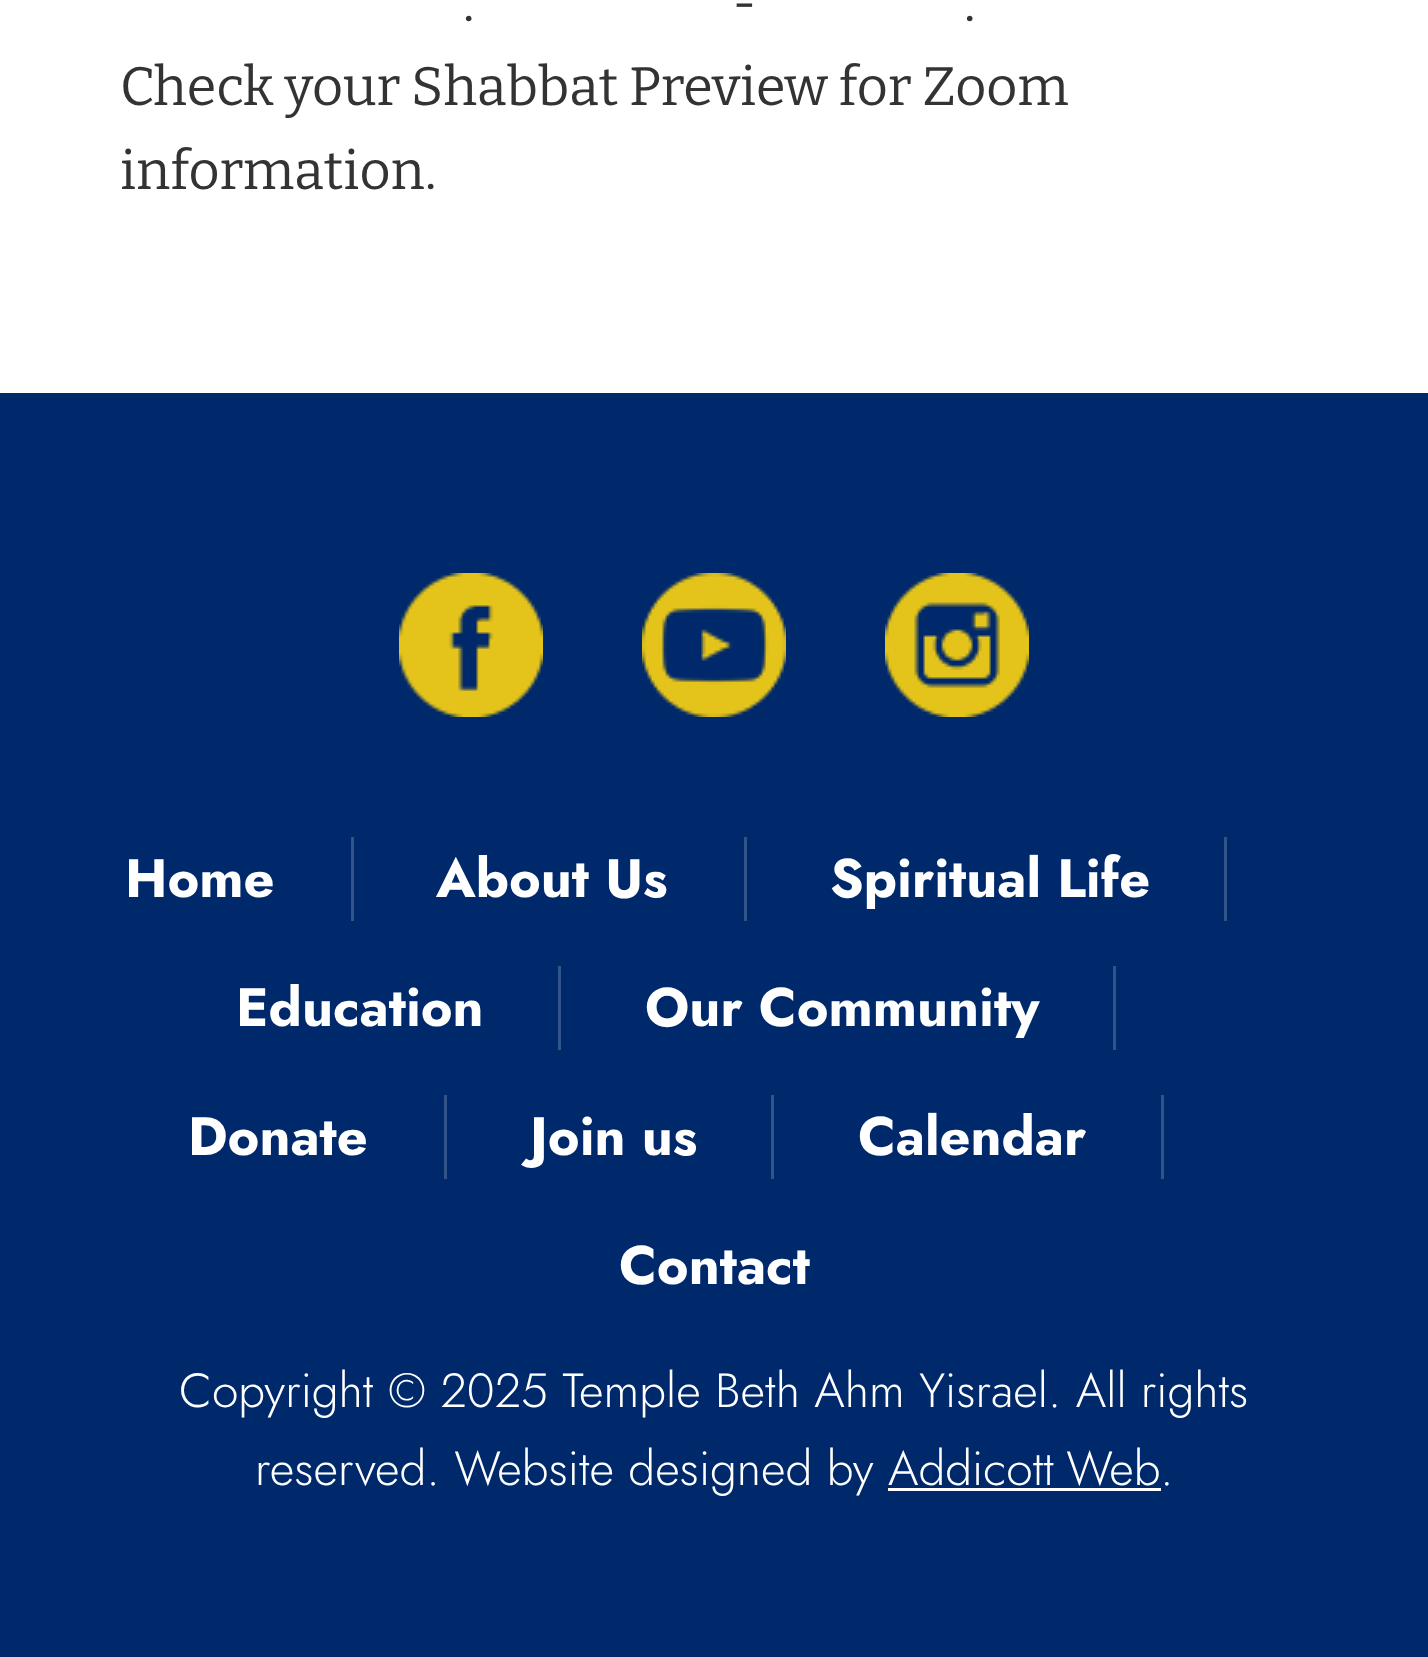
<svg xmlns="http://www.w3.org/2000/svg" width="1428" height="1657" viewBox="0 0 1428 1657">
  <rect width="100%" height="100%" fill="#00296b"/>
  <rect x="0" y="0" width="1428" height="393" fill="#ffffff"/>
  <text x="732" y="21" font-family="Bitter" font-size="54" fill="#333333">-</text>
  <text x="463" y="21" font-family="Bitter" font-size="54" fill="#333333">.</text>
  <text x="964" y="21" font-family="Bitter" font-size="54" fill="#333333">.</text>
  <text x="120" y="105" font-family="Bitter" font-size="54" fill="#333333">Check your Shabbat Preview for Zoom</text>
  <text x="120" y="189" font-family="Bitter" font-size="54" fill="#333333">information.</text>
  <image x="399" y="573" width="144" height="144" href="img1.png"/>
  <image x="642" y="573" width="144" height="144" href="img2.png"/>
  <image x="885" y="573" width="144" height="144" href="img3.png"/>
  <rect x="351" y="837" width="3" height="84" fill="#335489"/>
  <text x="125" y="897" font-family="Jost" font-size="54" font-weight="bold" fill="#ffffff">Home</text>
  <rect x="744" y="837" width="3" height="84" fill="#335489"/>
  <text x="436" y="897" font-family="Jost" font-size="54" font-weight="bold" fill="#ffffff">About Us</text>
  <rect x="1224" y="837" width="3" height="84" fill="#335489"/>
  <text x="830" y="897" font-family="Jost" font-size="54" font-weight="bold" fill="#ffffff">Spiritual Life</text>
  <rect x="558" y="966" width="3" height="84" fill="#335489"/>
  <text x="236" y="1026" font-family="Jost" font-size="54" font-weight="bold" fill="#ffffff">Education</text>
  <rect x="1113" y="966" width="3" height="84" fill="#335489"/>
  <text x="645" y="1026" font-family="Jost" font-size="54" font-weight="bold" fill="#ffffff">Our Community</text>
  <rect x="444" y="1095" width="3" height="84" fill="#335489"/>
  <text x="188" y="1155" font-family="Jost" font-size="54" font-weight="bold" fill="#ffffff">Donate</text>
  <rect x="771" y="1095" width="3" height="84" fill="#335489"/>
  <text x="530" y="1155" font-family="Jost" font-size="54" font-weight="bold" fill="#ffffff">Join us</text>
  <rect x="1161" y="1095" width="3" height="84" fill="#335489"/>
  <text x="858" y="1155" font-family="Jost" font-size="54" font-weight="bold" fill="#ffffff">Calendar</text>
  <text x="619" y="1284" font-family="Jost" font-size="54" font-weight="bold" fill="#ffffff">Contact</text>
  <text x="179" y="1407" font-family="Jost" font-size="48" font-weight="300" fill="#ffffff">Copyright © 2025 Temple Beth Ahm Yisrael. All rights</text>
  <text x="255" y="1485" font-family="Jost" font-size="48" font-weight="300" fill="#ffffff">reserved. Website designed by</text>
  <text x="888" y="1485" word-spacing="-2" font-family="Jost" font-size="48" font-weight="300" fill="#ffffff">Addicott Web</text>
  <rect x="888" y="1488" width="273" height="3" fill="#ffffff"/>
  <text x="1160" y="1485" font-family="Jost" font-size="48" font-weight="300" fill="#ffffff">.</text>
</svg>
